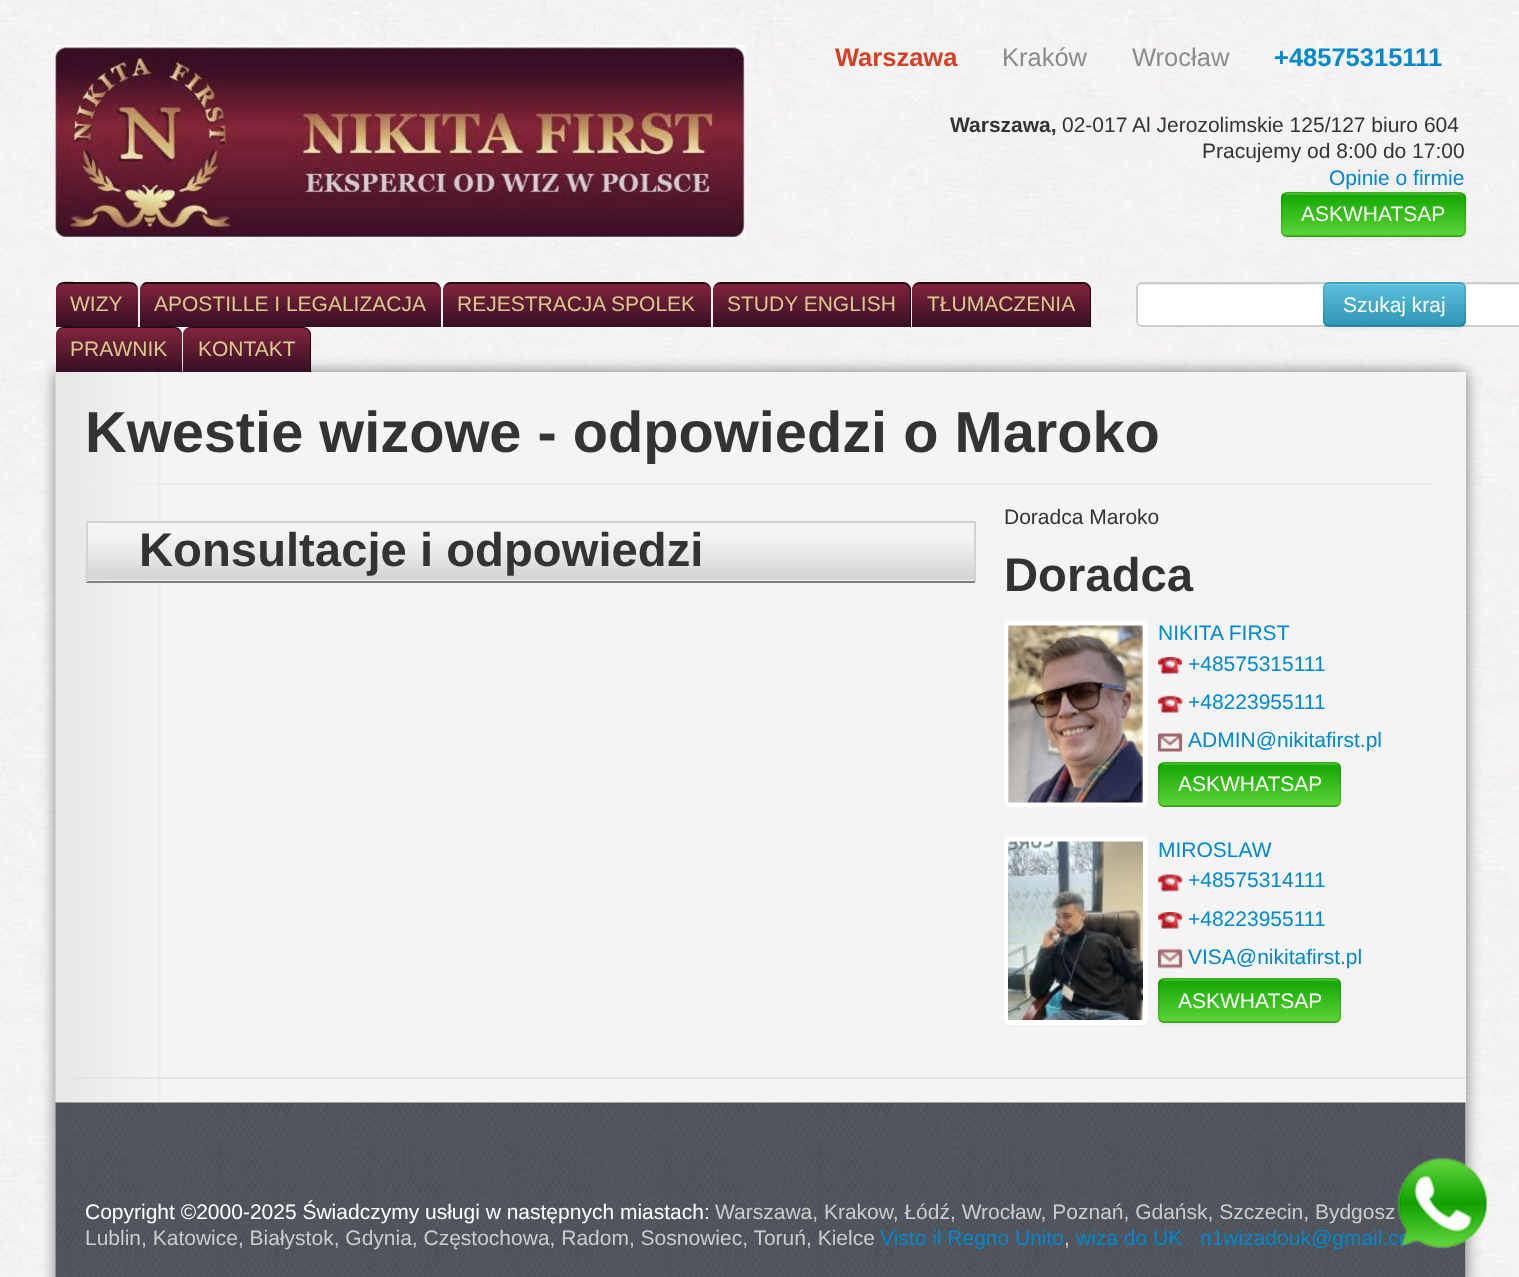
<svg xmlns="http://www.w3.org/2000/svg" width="1519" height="1277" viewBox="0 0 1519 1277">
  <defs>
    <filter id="blur1" x="-50%" y="-200%" width="200%" height="500%"><feGaussianBlur stdDeviation="1.5"/></filter>
    <clipPath id="clip1"><rect x="1281" y="192" width="185" height="45" rx="6"/></clipPath>
    <linearGradient id="g1" gradientUnits="userSpaceOnUse" x1="1373" y1="194" x2="1373" y2="236"><stop offset="0" stop-color="#12a701"/><stop offset="1" stop-color="#5dd537"/></linearGradient>
    <linearGradient id="g2" gradientUnits="userSpaceOnUse" x1="97" y1="282" x2="97" y2="327"><stop offset="0" stop-color="#83253d"/><stop offset="1" stop-color="#360f24"/></linearGradient>
    <linearGradient id="g3" gradientUnits="userSpaceOnUse" x1="290" y1="282" x2="290" y2="327"><stop offset="0" stop-color="#83253d"/><stop offset="1" stop-color="#360f24"/></linearGradient>
    <linearGradient id="g4" gradientUnits="userSpaceOnUse" x1="577" y1="282" x2="577" y2="327"><stop offset="0" stop-color="#83253d"/><stop offset="1" stop-color="#360f24"/></linearGradient>
    <linearGradient id="g5" gradientUnits="userSpaceOnUse" x1="812" y1="282" x2="812" y2="327"><stop offset="0" stop-color="#83253d"/><stop offset="1" stop-color="#360f24"/></linearGradient>
    <linearGradient id="g6" gradientUnits="userSpaceOnUse" x1="1001" y1="282" x2="1001" y2="327"><stop offset="0" stop-color="#83253d"/><stop offset="1" stop-color="#360f24"/></linearGradient>
    <filter id="blur2" x="-50%" y="-200%" width="200%" height="500%"><feGaussianBlur stdDeviation="7.5"/></filter>
    <linearGradient id="g7" gradientUnits="userSpaceOnUse" x1="119" y1="327" x2="119" y2="372"><stop offset="0" stop-color="#83253d"/><stop offset="1" stop-color="#360f24"/></linearGradient>
    <linearGradient id="g8" gradientUnits="userSpaceOnUse" x1="247" y1="327" x2="247" y2="372"><stop offset="0" stop-color="#83253d"/><stop offset="1" stop-color="#360f24"/></linearGradient>
    <clipPath id="clip2"><rect x="1323" y="282" width="143" height="45" rx="6"/></clipPath>
    <linearGradient id="g9" gradientUnits="userSpaceOnUse" x1="1394" y1="284" x2="1394" y2="326"><stop offset="0" stop-color="#5bc0de"/><stop offset="1" stop-color="#2f96b4"/></linearGradient>
    <clipPath id="clip3"><rect x="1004" y="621" width="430" height="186"/></clipPath>
    <clipPath id="clip4"><rect x="1158" y="762" width="183" height="45" rx="6"/></clipPath>
    <linearGradient id="g10" gradientUnits="userSpaceOnUse" x1="1250" y1="764" x2="1250" y2="806"><stop offset="0" stop-color="#12a701"/><stop offset="1" stop-color="#5dd537"/></linearGradient>
    <clipPath id="clip5"><rect x="1158" y="978" width="183" height="45" rx="6"/></clipPath>
    <linearGradient id="g11" gradientUnits="userSpaceOnUse" x1="1250" y1="980" x2="1250" y2="1022"><stop offset="0" stop-color="#12a701"/><stop offset="1" stop-color="#5dd537"/></linearGradient>
  </defs>
  <rect width="100%" height="100%" fill="#ffffff"/>
  <image x="0" y="0" width="1519" height="1277" href="img1.png"/>
  <image x="55" y="45" width="691" height="192" href="img2.png"/>
  <text x="835" y="66" font-family="Liberation Sans" font-size="25.5" font-weight="bold" fill="#d53f24">Warszawa</text>
  <text x="1002" y="66" font-family="Liberation Sans" font-size="25.5" fill="#8b8b8b">Kraków</text>
  <text x="1132" y="66" font-family="Liberation Sans" font-size="25.5" fill="#8b8b8b">Wrocław</text>
  <text x="1274" y="66" font-family="Liberation Sans" font-size="25.5" font-weight="bold" fill="#0088cc">+48575315111</text>
  <text x="950" y="132" font-family="Liberation Sans" font-size="21" font-weight="bold" fill="#333333">Warszawa,</text>
  <text x="1062" y="132" font-family="Liberation Sans" font-size="21" fill="#333333">02-017 Al Jerozolimskie 125/127 biuro 604</text>
  <text x="1202" y="158" font-family="Liberation Sans" font-size="21" fill="#333333">Pracujemy od 8:00 do 17:00</text>
  <text x="1329" y="185" font-family="Liberation Sans" font-size="21" fill="#0088cc">Opinie o firmie</text>
  <rect x="1281" y="194" width="185" height="45" rx="6" fill="#000000" fill-opacity="0.05" filter="url(#blur1)"/>
  <rect x="1281" y="192" width="185" height="45" rx="6" fill="#3ec120"/>
  <g clip-path="url(#clip1)">
    <rect x="1281" y="194" width="185" height="42" fill="url(#g1)"/>
  </g>
  <path d="M1287 195H1460C1462 195 1464 197 1464 200V199C1464 196 1462 194 1459 194H1288C1286 194 1285 195 1284 196Z" fill="#42b935"/>
  <path d="M1463 234.5C1462 235.5 1461 236 1459.5 236H1287C1285.5 236 1284.5 235.5 1283.5 234.5" fill="none" stroke="#000000" stroke-opacity="0.25" stroke-width="1.5"/>
  <path d="M1283.5 234.5C1280 231.5 1282 223.5 1282 220C1282 185.5 1277 193 1316 193H1431C1469.5 193 1465 185.5 1465 220C1465 223.5 1466.5 231.5 1463 234.5" fill="none" stroke="#000000" stroke-opacity="0.1" stroke-width="1.5"/>
  <text x="1301" y="221" font-family="Liberation Sans" font-size="21" fill="#ffffff">ASKWHATSAP</text>
  <path d="M64 282H130C134.5 282 138 285.5 138 290V327H56V290C56 285.5 59.5 282 64 282Z" fill="url(#g2)"/>
  <path d="M63 284H130C135 284 138 287 138 291C138 280 127 282 119 282H75C67 282 56 280 56 291C56 287 59 284 63 284Z" fill="#000000" fill-opacity="0.7"/>
  <text x="70" y="311" font-family="Liberation Sans" font-size="21" fill="#d9c98d">WIZY</text>
  <path d="M148 282H433C437.5 282 441 285.5 441 290V327H140V290C140 285.5 143.5 282 148 282Z" fill="url(#g3)"/>
  <path d="M147 284H434C438 284 441 287 441 291C441 286 438 282 433 282H146C142 283 140 287 140 291C140 287 143 284 147 284Z" fill="#000000" fill-opacity="0.7"/>
  <text x="154" y="311" font-family="Liberation Sans" font-size="21" fill="#d9c98d">APOSTILLE I LEGALIZACJA</text>
  <path d="M451 282H703C707.5 282 711 285.5 711 290V327H443V290C443 285.5 446.5 282 451 282Z" fill="url(#g4)"/>
  <path d="M450 284H704C708 284 711 287 711 291V290C711 286 707 282 703 282H451C448 282 445 284 444 287C445 285 448 284 450 284Z" fill="#000000" fill-opacity="0.7"/>
  <text x="457" y="311" font-family="Liberation Sans" font-size="21" fill="#d9c98d">REJESTRACJA SPOLEK</text>
  <path d="M721 282H903C907.5 282 911 285.5 911 290V327H713V290C713 285.5 716.5 282 721 282Z" fill="url(#g5)"/>
  <path d="M720 284H903C907 284 910 287 910 291V327H911V290C911 286 907 282 903 282H721C718 282 715 284 714 287C715 285 718 284 720 284Z" fill="#000000" fill-opacity="0.7"/>
  <text x="727" y="311" font-family="Liberation Sans" font-size="21" fill="#d9c98d">STUDY ENGLISH</text>
  <path d="M920 282H1083C1087.5 282 1091 285.5 1091 290V327H912V290C912 285.5 915.5 282 920 282Z" fill="url(#g6)"/>
  <path d="M920 284H1083C1087 284 1090 287 1090 291V327H1091V290C1091 286 1087 282 1083 282H920C916 282 912 286 912 290V291C912 287 915 284 920 284Z" fill="#000000" fill-opacity="0.7"/>
  <text x="927" y="311" font-family="Liberation Sans" font-size="21" fill="#d9c98d">TŁUMACZENIA</text>
  <rect x="56" y="372" width="1410" height="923" fill="#000000" fill-opacity="0.5" filter="url(#blur2)"/>
  <path d="M64 327H174C178.5 327 182 330.5 182 335V372H56V335C56 330.5 59.5 327 64 327Z" fill="url(#g7)"/>
  <path d="M63 328H174C178 328 182 332 182 336C182 322 164 327 156 327H82C74 327 56 322 56 336C56 332 59 328 63 328Z" fill="#000000" fill-opacity="0.7"/>
  <text x="70" y="356" font-family="Liberation Sans" font-size="21" fill="#d9c98d">PRAWNIK</text>
  <path d="M191 327H303C307.5 327 311 330.5 311 335V372H183V335C183 330.5 186.5 327 191 327Z" fill="url(#g8)"/>
  <path d="M190 328H303C307 328 310 332 310 336V372H311V335C311 331 307 327 303 327H191C187 327 183 331 183 335V336C183 332 186 328 190 328Z" fill="#000000" fill-opacity="0.7"/>
  <text x="198" y="356" font-family="Liberation Sans" font-size="21" fill="#d9c98d">KONTAKT</text>
  <rect x="1136" y="282" width="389" height="45" rx="6" fill="#ffffff"/>
  <path d="M1142 285H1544C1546 285 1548 287 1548 290V289C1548 286 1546 284 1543 284H1142C1139 284 1137 286 1137 289V290C1137 287 1139 285 1142 285Z" fill="#ececec"/>
  <rect x="1137" y="283" width="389" height="43" rx="5" fill="none" stroke="#cccccc" stroke-width="2"/>
  <rect x="1323" y="284" width="143" height="45" rx="6" fill="#000000" fill-opacity="0.05" filter="url(#blur1)"/>
  <rect x="1323" y="282" width="143" height="45" rx="6" fill="#49afcd"/>
  <g clip-path="url(#clip2)">
    <rect x="1323" y="284" width="143" height="42" fill="url(#g9)"/>
  </g>
  <path d="M1329 285H1460C1462 285 1464 287 1464 290V289C1464 286 1462 284 1459 284H1330C1328 284 1327 285 1326 286Z" fill="#7bcde5"/>
  <path d="M1463 324.5C1462 325.5 1461 326 1459.5 326H1329C1327.5 326 1326.5 325.5 1325.5 324.5" fill="none" stroke="#000000" stroke-opacity="0.25" stroke-width="1.5"/>
  <path d="M1325.5 324.5C1322 321.5 1324 313.5 1324 310C1324 278.5 1318 283 1351 283H1438C1470.5 283 1465 278.5 1465 310C1465 313.5 1466.5 321.5 1463 324.5" fill="none" stroke="#000000" stroke-opacity="0.1" stroke-width="1.5"/>
  <text x="1343" y="312" font-family="Liberation Sans" font-size="21" fill="#ffffff">Szukaj kraj</text>
  <rect x="160" y="372" width="1306" height="905" fill="#f4f4f4"/>
  <image x="55" y="372" width="106" height="905" href="img3.png"/>
  <rect x="86" y="483" width="1350" height="2" fill="#eeeeee"/>
  <text x="85" y="452" font-family="Liberation Sans" font-size="57.75" font-weight="bold" fill="#333333">Kwestie wizowe - odpowiedzi o Maroko</text>
  <rect x="88" y="523" width="73" height="58" fill="#f3f3f3"/>
  <image x="85" y="536" width="889" height="45" href="img4.png"/>
  <rect x="86" y="521" width="889" height="2" fill="#d3d3d3"/>
  <rect x="974" y="521" width="2" height="61" fill="#d3d3d3"/>
  <rect x="86" y="581" width="889" height="2" fill="#808080"/>
  <rect x="86" y="521" width="2" height="61" fill="#d3d3d3"/>
  <text x="139" y="566" font-family="Liberation Sans" font-size="47.25" font-weight="bold" fill="#333333">Konsultacje i odpowiedzi</text>
  <text x="1004" y="524" font-family="Liberation Sans" font-size="21" fill="#333333">Doradca Maroko</text>
  <text x="1004" y="591" font-family="Liberation Sans" font-size="47.25" font-weight="bold" fill="#333333">Doradca</text>
  <rect x="1006.5" y="623.5" width="139" height="181" rx="3.5" fill="none" stroke="#ffffff" stroke-width="5"/>
  <image x="1008" y="625" width="135" height="178" href="img5.png"/>
  <text x="1158" y="640" font-family="Liberation Sans" font-size="21" fill="#0088cc">NIKITA FIRST</text>
  <image x="1158" y="657" width="24" height="17" href="img6.png"/>
  <text x="1188" y="671" font-family="Liberation Sans" font-size="21" fill="#0088cc">+48575315111</text>
  <image x="1158" y="695" width="25" height="18" href="img7.png"/>
  <text x="1188" y="709" font-family="Liberation Sans" font-size="21" fill="#0088cc">+48223955111</text>
  <image x="1158" y="733" width="24" height="19" href="img8.png"/>
  <text x="1188" y="747" font-family="Liberation Sans" font-size="21" fill="#0088cc">ADMIN@nikitafirst.pl</text>
  <g clip-path="url(#clip3)">
    <rect x="1158" y="764" width="183" height="45" rx="6" fill="#000000" fill-opacity="0.05" filter="url(#blur1)"/>
  </g>
  <rect x="1158" y="762" width="183" height="45" rx="6" fill="#3ec120"/>
  <g clip-path="url(#clip4)">
    <rect x="1158" y="764" width="183" height="42" fill="url(#g10)"/>
  </g>
  <path d="M1164 765H1335C1337 765 1340 767 1340 770C1340 767 1339 765 1336 764H1165C1162 764 1160 767 1160 770C1160 767 1162 765 1164 765Z" fill="#ffffff" fill-opacity="0.2"/>
  <path d="M1338.5 804.5C1337.5 805.5 1336.5 806 1335 806H1164C1162.5 806 1161.5 805.5 1160.5 804.5" fill="none" stroke="#000000" stroke-opacity="0.25" stroke-width="1.5"/>
  <path d="M1160.5 804.5C1157 801.5 1159 793.5 1159 790C1159 755.5 1154 763 1192.5 763H1306.5C1345 763 1340 755.5 1340 790C1340 793.5 1342 801.5 1338.5 804.5" fill="none" stroke="#000000" stroke-opacity="0.1" stroke-width="1.5"/>
  <text x="1178" y="791" font-family="Liberation Sans" font-size="21" fill="#ffffff">ASKWHATSAP</text>
  <rect x="1006.5" y="839.5" width="139" height="183" rx="3.5" fill="none" stroke="#ffffff" stroke-width="5"/>
  <image x="1008" y="841" width="135" height="179" href="img9.png"/>
  <text x="1158" y="857" font-family="Liberation Sans" font-size="21" fill="#0088cc">MIROSLAW</text>
  <image x="1158" y="874" width="24" height="18" href="img10.png"/>
  <text x="1188" y="887" font-family="Liberation Sans" font-size="21" fill="#0088cc">+48575314111</text>
  <image x="1158" y="912" width="24" height="17" href="img6.png"/>
  <text x="1188" y="926" font-family="Liberation Sans" font-size="21" fill="#0088cc">+48223955111</text>
  <image x="1158" y="948" width="24" height="21" href="img11.png"/>
  <text x="1188" y="964" font-family="Liberation Sans" font-size="21" fill="#0088cc">VISA@nikitafirst.pl</text>
  <rect x="1158" y="980" width="183" height="45" rx="6" fill="#000000" fill-opacity="0.05" filter="url(#blur1)"/>
  <rect x="1158" y="978" width="183" height="45" rx="6" fill="#3ec120"/>
  <g clip-path="url(#clip5)">
    <rect x="1158" y="980" width="183" height="42" fill="url(#g11)"/>
  </g>
  <path d="M1164 981H1335C1337 981 1340 983 1340 986C1340 983 1339 981 1336 980H1165C1162 980 1160 983 1160 986C1160 983 1162 981 1164 981Z" fill="#ffffff" fill-opacity="0.2"/>
  <path d="M1338.5 1020.5C1337.5 1021.5 1336.5 1022 1335 1022H1164C1162.5 1022 1161.5 1021.5 1160.5 1020.5" fill="none" stroke="#000000" stroke-opacity="0.25" stroke-width="1.5"/>
  <path d="M1160.5 1020.5C1157 1017.5 1159 1009.5 1159 1006C1159 971.5 1154 979 1192.5 979H1306.5C1345 979 1340 971.5 1340 1006C1340 1009.5 1342 1017.5 1338.5 1020.5" fill="none" stroke="#000000" stroke-opacity="0.1" stroke-width="1.5"/>
  <text x="1178" y="1008" font-family="Liberation Sans" font-size="21" fill="#ffffff">ASKWHATSAP</text>
  <rect x="56" y="1077" width="1410" height="2" fill="#e5e5e5"/>
  <image x="55" y="1102" width="1411" height="175" href="img12.png"/>
  <text x="85" y="1219" font-family="Liberation Sans" font-size="21" fill="#ffffff">Copyright ©2000-2025 Świadczymy usługi w następnych miastach:</text>
  <text x="715" y="1219" font-family="Liberation Sans" font-size="21" fill="#cccccc">Warszawa, Krakow, Łódź, Wrocław, Poznań, Gdańsk, Szczecin, Bydgosz</text>
  <text x="85" y="1245" font-family="Liberation Sans" font-size="21" fill="#cccccc">Lublin, Katowice, Białystok, Gdynia, Częstochowa, Radom, Sosnowiec, Toruń, Kielce</text>
  <text x="880" y="1245" font-family="Liberation Sans" font-size="21" fill="#0088cc">Visto il Regno Unito</text>
  <text x="1064" y="1245" font-family="Liberation Sans" font-size="21" fill="#cccccc">,</text>
  <text x="1076" y="1245" font-family="Liberation Sans" font-size="21" fill="#0088cc">wiza do UK</text>
  <text x="1200" y="1245" font-family="Liberation Sans" font-size="21" fill="#0088cc">n1wizadouk@gmail.co</text>
  <image x="1397" y="1157" width="91" height="92" href="img13.png"/>
</svg>
